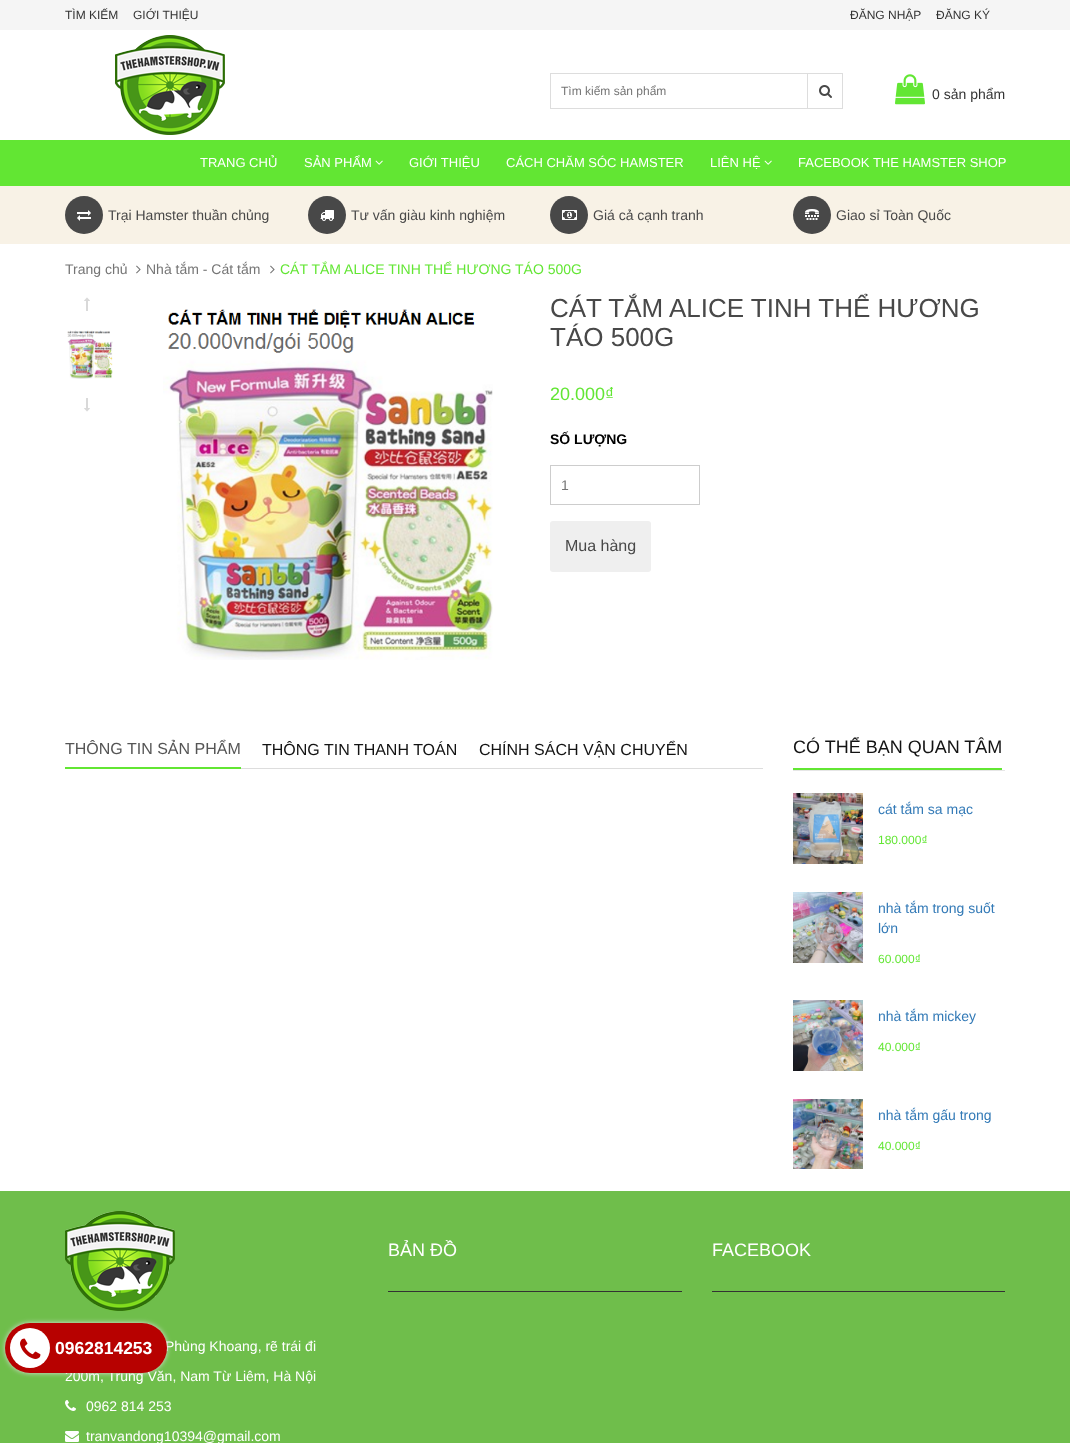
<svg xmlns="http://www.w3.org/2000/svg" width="1070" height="1443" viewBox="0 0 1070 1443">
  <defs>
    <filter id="blur1" x="-50%" y="-200%" width="200%" height="500%"><feGaussianBlur stdDeviation="2.5"/></filter>
  </defs>
  <rect width="100%" height="100%" fill="#ffffff"/>
  <rect x="0" y="0" width="1070" height="30" fill="#f5f5f5"/>
  <text x="65" y="19" font-family="Liberation Sans" font-size="12" fill="#333333">TÌM KIẾM</text>
  <text x="133" y="19" font-family="Liberation Sans" font-size="12" fill="#333333">GIỚI THIỆU</text>
  <text x="850" y="19" font-family="Liberation Sans" font-size="12" fill="#333333">ĐĂNG NHẬP</text>
  <text x="936" y="19" font-family="Liberation Sans" font-size="12" fill="#333333">ĐĂNG KÝ</text>
  <image x="115" y="35" width="110" height="100" href="img1.png"/>
  <rect x="550.5" y="73.5" width="292" height="35" fill="none" stroke="#dddddd"/>
  <text x="561" y="95" font-family="Liberation Sans" font-size="12" fill="#757575">Tìm kiếm sản phẩm</text>
  <rect x="807.5" y="73.5" width="35" height="35" fill="none" stroke="#dddddd"/>
  <image x="819" y="85" width="13" height="13" href="img2.png"/>
  <image x="895" y="74" width="30" height="31" href="img3.png"/>
  <text x="932" y="99" font-family="Liberation Sans" font-size="14" fill="#333333">0 sản phẩm</text>
  <rect x="0" y="140" width="1070" height="46" fill="#62e633"/>
  <text x="200" y="167" font-family="Liberation Sans" font-size="13" fill="#ffffff">TRANG CHỦ</text>
  <text x="304" y="167" font-family="Liberation Sans" font-size="13" fill="#ffffff">SẢN PHẨM</text>
  <image x="375" y="160" width="8" height="5" href="img4.png"/>
  <text x="409" y="167" font-family="Liberation Sans" font-size="13" fill="#ffffff">GIỚI THIỆU</text>
  <text x="506" y="167" font-family="Liberation Sans" font-size="13" fill="#ffffff">CÁCH CHĂM SÓC HAMSTER</text>
  <text x="710" y="167" font-family="Liberation Sans" font-size="13" fill="#ffffff">LIÊN HỆ</text>
  <image x="764" y="160" width="8" height="5" href="img4.png"/>
  <text x="798" y="167" font-family="Liberation Sans" font-size="13" fill="#ffffff">FACEBOOK THE HAMSTER SHOP</text>
  <rect x="0" y="186" width="1070" height="58" fill="#f8f2e6"/>
  <circle cx="84" cy="215" r="19" fill="#484848"/>
  <image x="77" y="210" width="14" height="11" href="img5.png"/>
  <text x="108" y="220" font-family="Liberation Sans" font-size="14" fill="#484848">Trại Hamster thuần chủng</text>
  <circle cx="327" cy="215" r="19" fill="#484848"/>
  <image x="320" y="210" width="14" height="11" href="img6.png"/>
  <text x="351" y="220" font-family="Liberation Sans" font-size="14" fill="#484848">Tư vấn giàu kinh nghiệm</text>
  <circle cx="569" cy="215" r="19" fill="#484848"/>
  <image x="562" y="210" width="15" height="10" href="img7.png"/>
  <text x="593" y="220" font-family="Liberation Sans" font-size="14" fill="#484848">Giá cả cạnh tranh</text>
  <circle cx="812" cy="215" r="19" fill="#484848"/>
  <image x="805" y="209" width="14" height="11" href="img8.png"/>
  <text x="836" y="220" font-family="Liberation Sans" font-size="14" fill="#484848">Giao sỉ Toàn Quốc</text>
  <text x="65" y="274" font-family="Liberation Sans" font-size="14" fill="#757575">Trang chủ</text>
  <image x="136" y="265" width="5" height="9" href="img9.png"/>
  <text x="146" y="274" font-family="Liberation Sans" font-size="14" fill="#757575">Nhà tắm - Cát tắm</text>
  <image x="270" y="265" width="5" height="9" href="img9.png"/>
  <text x="280" y="274" font-family="Liberation Sans" font-size="14" fill="#62e633">CÁT TẮM ALICE TINH THỂ HƯƠNG TÁO 500G</text>
  <image x="84" y="297" width="6" height="14" href="img10.png"/>
  <image x="84" y="398" width="6" height="14" href="img11.png"/>
  <image x="67" y="330" width="46" height="49" href="img12.png"/>
  <image x="163" y="309" width="330" height="351" href="img13.png"/>
  <text x="550" y="317" font-family="Liberation Sans" font-size="26" fill="#484848">CÁT TẮM ALICE TINH THỂ HƯƠNG</text>
  <text x="550" y="346" font-family="Liberation Sans" font-size="26" fill="#484848">TÁO 500G</text>
  <text x="550" y="400" font-family="Liberation Sans" font-size="18" fill="#62e633">20.000₫</text>
  <text x="550" y="444" font-family="Liberation Sans" font-size="14" font-weight="bold" fill="#000000">SỐ LƯỢNG</text>
  <rect x="550.5" y="465.5" width="149" height="39" fill="none" stroke="#cdcdcd"/>
  <text x="561" y="490" font-family="Liberation Sans" font-size="14" fill="#757575">1</text>
  <rect x="550" y="521" width="101" height="51" rx="3" fill="#efefef"/>
  <text x="565" y="551" font-family="Liberation Sans" font-size="16" fill="#484848">Mua hàng</text>
  <rect x="241" y="768" width="522" height="1" fill="#dddddd"/>
  <rect x="65" y="767" width="176" height="2" fill="#62e633"/>
  <text x="65" y="754" font-family="Liberation Sans" font-size="16" fill="#555555">THÔNG TIN SẢN PHẨM</text>
  <text x="262" y="755" font-family="Liberation Sans" font-size="16" fill="#131313">THÔNG TIN THANH TOÁN</text>
  <text x="479" y="755" font-family="Liberation Sans" font-size="16" fill="#131313">CHÍNH SÁCH VẬN CHUYỂN</text>
  <rect x="793" y="770" width="212" height="1" fill="#e6e6e6"/>
  <rect x="793" y="768" width="209" height="2" fill="#62e633"/>
  <text x="793" y="753" font-family="Liberation Sans" font-size="18" fill="#131313">CÓ THỂ BẠN QUAN TÂM</text>
  <image x="793" y="793" width="70" height="71" href="img14.png"/>
  <text x="878" y="814" font-family="Liberation Sans" font-size="14" fill="#337ab7">cát tắm sa mạc</text>
  <text x="878" y="844" font-family="Liberation Sans" font-size="12" fill="#62e633">180.000₫</text>
  <image x="793" y="892" width="70" height="71" href="img15.png"/>
  <text x="878" y="913" font-family="Liberation Sans" font-size="14" fill="#337ab7">nhà tắm trong suốt</text>
  <text x="878" y="933" font-family="Liberation Sans" font-size="14" fill="#337ab7">lớn</text>
  <text x="878" y="963" font-family="Liberation Sans" font-size="12" fill="#62e633">60.000₫</text>
  <image x="793" y="1000" width="70" height="71" href="img16.png"/>
  <text x="878" y="1021" font-family="Liberation Sans" font-size="14" fill="#337ab7">nhà tắm mickey</text>
  <text x="878" y="1051" font-family="Liberation Sans" font-size="12" fill="#62e633">40.000₫</text>
  <image x="793" y="1099" width="70" height="70" href="img17.png"/>
  <text x="878" y="1120" font-family="Liberation Sans" font-size="14" fill="#337ab7">nhà tắm gấu trong</text>
  <text x="878" y="1150" font-family="Liberation Sans" font-size="12" fill="#62e633">40.000₫</text>
  <rect x="0" y="1191" width="1070" height="252" fill="#6fbe4b"/>
  <rect x="388" y="1291" width="294" height="1" fill="#323232"/>
  <text x="388" y="1256" font-family="Liberation Sans" font-size="18" fill="#ffffff">BẢN ĐỒ</text>
  <rect x="712" y="1291" width="293" height="1" fill="#323232"/>
  <text x="712" y="1256" font-family="Liberation Sans" font-size="18" fill="#ffffff">FACEBOOK</text>
  <image x="65" y="1211" width="110" height="100" href="img18.png"/>
  <text x="165" y="1351" font-family="Liberation Sans" font-size="14" fill="#ffffff">Phùng Khoang, rẽ trái đi</text>
  <text x="65" y="1381" font-family="Liberation Sans" font-size="14" fill="#ffffff">200m, Trung Văn, Nam Từ Liêm, Hà Nội</text>
  <image x="65" y="1400" width="11" height="11" href="img19.png"/>
  <text x="86" y="1411" font-family="Liberation Sans" font-size="14" fill="#ffffff">0962 814 253</text>
  <image x="65" y="1431" width="14" height="11" href="img20.png"/>
  <text x="86" y="1441" font-family="Liberation Sans" font-size="14" fill="#ffffff">tranvandong10394@gmail.com</text>
  <rect x="5" y="1323" width="162" height="50" rx="25" fill="#dddddd" filter="url(#blur1)"/>
  <rect x="5" y="1323" width="162" height="50" rx="25" fill="#b70100"/>
  <circle cx="30" cy="1348" r="20" fill="#ffffff"/>
  <image x="20" y="1338" width="21" height="21" href="img21.png"/>
  <text x="55" y="1354" font-family="Liberation Sans" font-size="17.5" font-weight="bold" fill="#ffffff">0962814253</text>
</svg>
